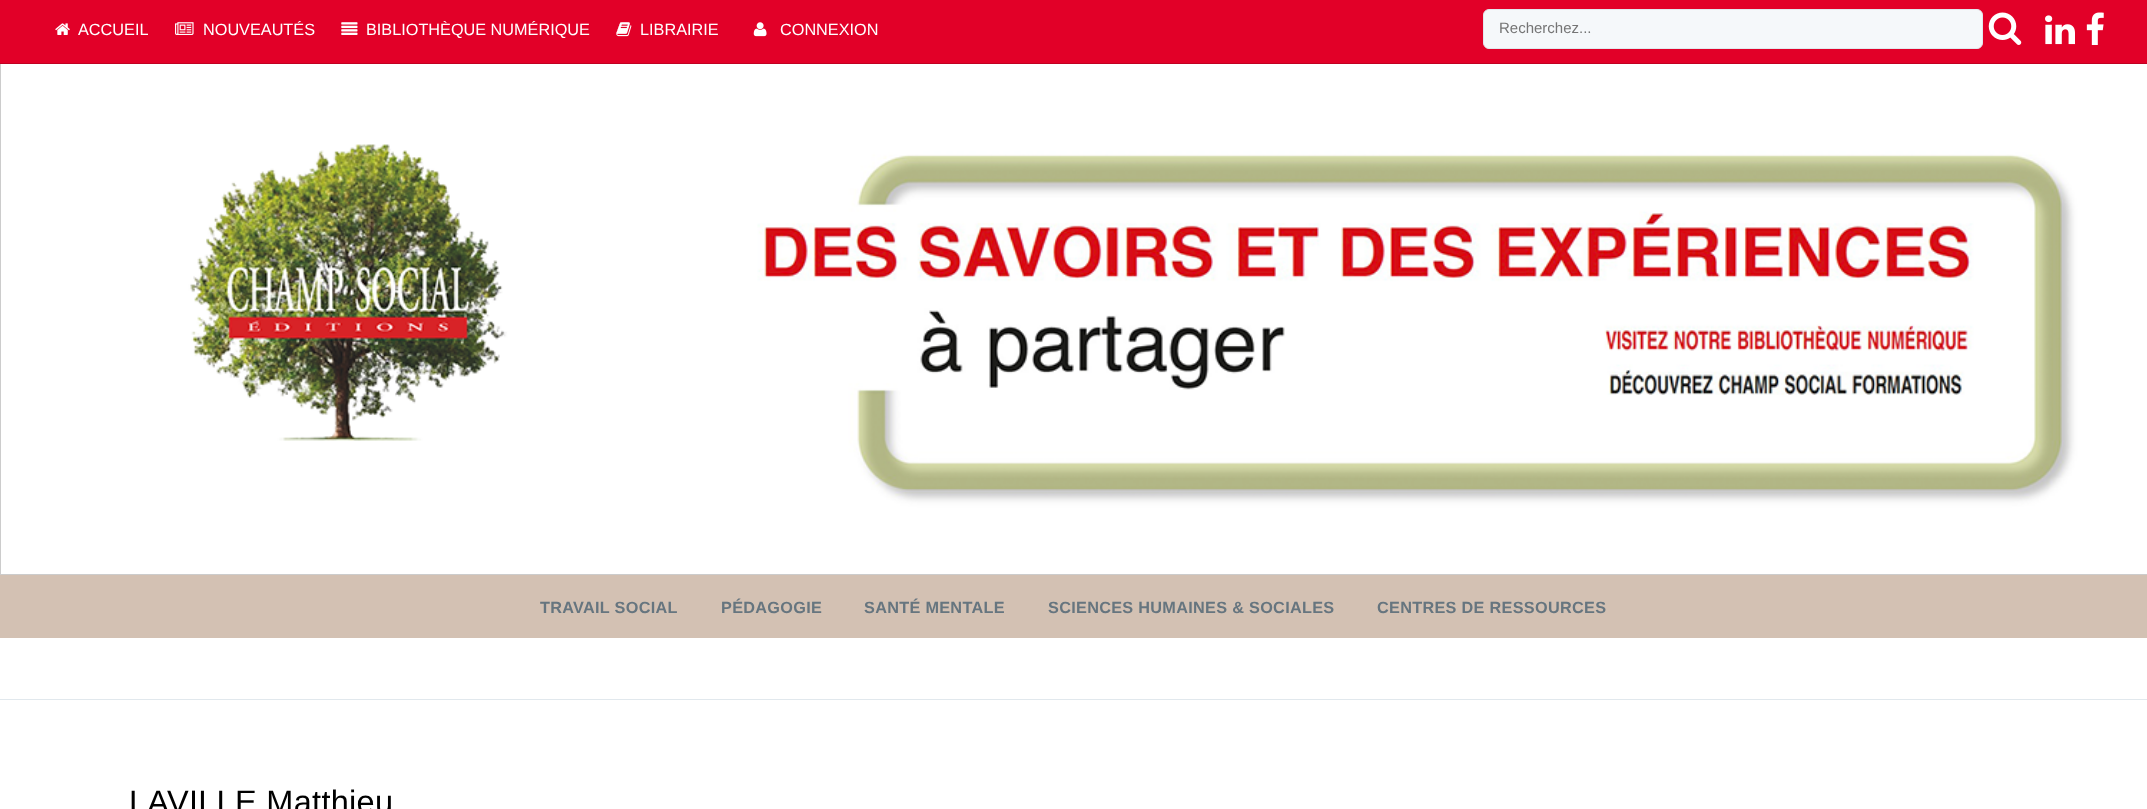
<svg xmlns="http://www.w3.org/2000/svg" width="2147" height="809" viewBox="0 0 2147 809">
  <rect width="100%" height="100%" fill="#ffffff"/>
  <image x="1" y="64" width="2146" height="510" href="img9.png"/>
  <rect x="0.5" y="0.5" width="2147" height="574" fill="none" stroke="#cccccc"/>
  <rect x="0" y="0" width="2147" height="63" fill="#e20028"/>
  <rect x="0" y="63" width="2147" height="1" fill="#c00022"/>
  <image x="55" y="23" width="15" height="12" href="img1.png"/>
  <text x="78" y="35" font-family="Liberation Sans" font-size="16.25" fill="#ffffff">ACCUEIL</text>
  <image x="175" y="22" width="19" height="13" href="img2.png"/>
  <text x="203" y="35" font-family="Liberation Sans" font-size="16.25" fill="#ffffff">NOUVEAUTÉS</text>
  <image x="341" y="22" width="17" height="13" href="img3.png"/>
  <text x="366" y="35" font-family="Liberation Sans" font-size="16.25" fill="#ffffff">BIBLIOTHÈQUE NUMÉRIQUE</text>
  <image x="616" y="22" width="16" height="15" href="img4.png"/>
  <text x="640" y="35" font-family="Liberation Sans" font-size="16.25" fill="#ffffff">LIBRAIRIE</text>
  <image x="753" y="22" width="14" height="15" href="img5.png"/>
  <text x="780" y="35" font-family="Liberation Sans" font-size="16.25" fill="#ffffff">CONNEXION</text>
  <rect x="1483.5" y="9.5" width="499" height="39" rx="5.5" fill="#f5f8fa" stroke="#e1e8ed"/>
  <text x="1499" y="33" font-family="Liberation Sans" font-size="15" fill="#757575">Recherchez...</text>
  <image x="1988" y="12" width="34" height="33" href="img6.png"/>
  <image x="2045" y="15" width="30" height="30" href="img7.png"/>
  <image x="2086" y="12" width="18" height="33" href="img8.png"/>
  <rect x="0" y="575" width="2147" height="63" fill="#d3c1b3"/>
  <text x="540" y="613" font-family="Liberation Sans" font-size="16.25" font-weight="bold" letter-spacing="0.3" fill="#66757f">TRAVAIL SOCIAL</text>
  <text x="721" y="613" font-family="Liberation Sans" font-size="16.25" font-weight="bold" letter-spacing="0.3" fill="#66757f">PÉDAGOGIE</text>
  <text x="864" y="613" font-family="Liberation Sans" font-size="16.25" font-weight="bold" letter-spacing="0.3" fill="#66757f">SANTÉ MENTALE</text>
  <text x="1048" y="613" font-family="Liberation Sans" font-size="16.25" font-weight="bold" letter-spacing="0.3" fill="#66757f">SCIENCES HUMAINES &amp; SOCIALES</text>
  <text x="1377" y="613" font-family="Liberation Sans" font-size="16.25" font-weight="bold" letter-spacing="0.3" fill="#66757f">CENTRES DE RESSOURCES</text>
  <rect x="0" y="699" width="2147" height="1" fill="#e1e8ed"/>
  <text x="129" y="813" font-family="Liberation Sans" font-size="32.5" letter-spacing="0.3" fill="#000000">LAVILLE Matthieu</text>
</svg>
